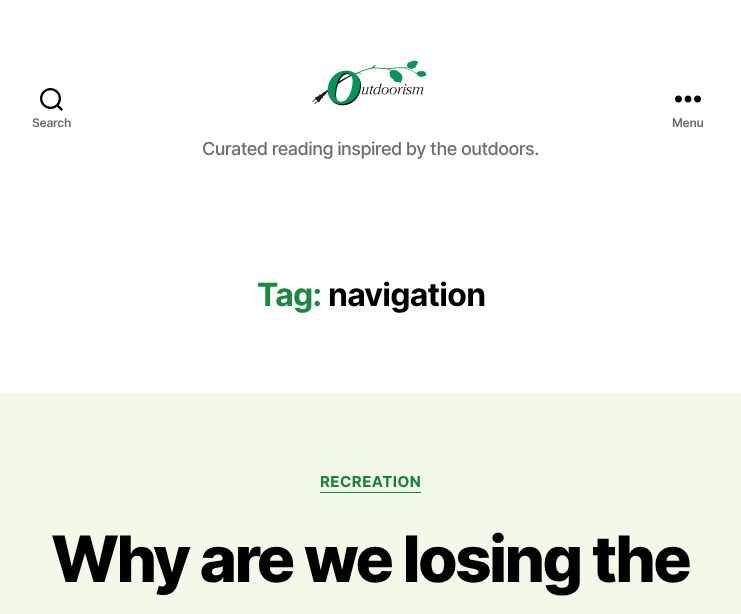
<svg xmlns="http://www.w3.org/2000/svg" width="741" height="614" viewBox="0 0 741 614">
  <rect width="100%" height="100%" fill="#f2f9e8"/>
  <rect x="0" y="0" width="741" height="393" fill="#ffffff"/>
  <image x="40" y="88" width="23" height="23" href="img1.png"/>
  <text x="32" y="127" font-family="Inter" font-size="12" font-weight="600" letter-spacing="-0.25" fill="#6d6d6d">Search</text>
  <image x="675" y="95" width="26" height="8" href="img2.png"/>
  <text x="672" y="127" font-family="Inter" font-size="12" font-weight="600" letter-spacing="-0.25" fill="#6d6d6d">Menu</text>
  <image x="312" y="60" width="115" height="46" href="img3.png"/>
  <text x="202" y="155" font-family="Inter" font-size="18" font-weight="500" letter-spacing="-0.55" fill="#6d6d6d">Curated reading inspired by the outdoors.</text>
  <text x="257" y="306" font-family="Inter" font-size="32" font-weight="bold" letter-spacing="-0.75" fill="#1a8841">Tag:</text>
  <text x="328" y="306" font-family="Inter" font-size="32" font-weight="bold" letter-spacing="-0.75" fill="#000000">navigation</text>
  <rect x="320" y="492" width="101" height="1" fill="#16823c"/>
  <text x="320" y="487" font-family="Inter" font-size="15" font-weight="bold" letter-spacing="0.5" fill="#16823c">RECREATION</text>
  <text x="51" y="582" font-family="Inter" font-size="64" font-weight="800" letter-spacing="-2.7" fill="#000000">Why are we losing the</text>
</svg>
